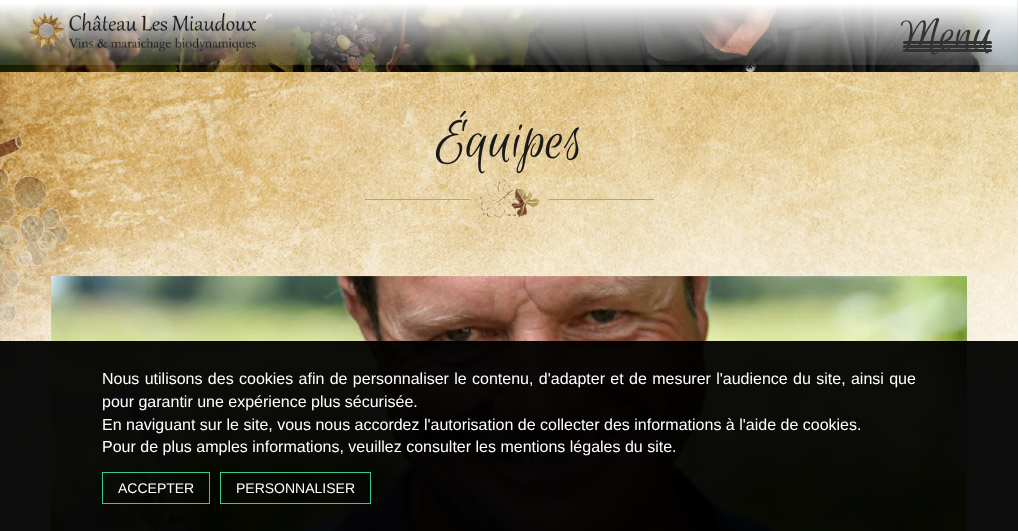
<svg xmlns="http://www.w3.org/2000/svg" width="1018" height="531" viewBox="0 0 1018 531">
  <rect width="100%" height="100%" fill="#ffffff"/>
  <image x="0" y="0" width="1018" height="72" href="img1.png"/>
  <image x="0" y="0" width="1018" height="65" href="img2.png"/>
  <image x="28" y="13" width="229" height="38" href="img3.png"/>
  <text x="901" y="49" font-family="Euphoria Script" font-size="50" fill="#333333">Menu</text>
  <rect x="903" y="41" width="89" height="3" rx="1.5" fill="#333333"/>
  <rect x="903" y="45" width="89" height="3" rx="1.5" fill="#333333"/>
  <rect x="903" y="49" width="89" height="3" rx="1.5" fill="#333333"/>
  <image x="0" y="72" width="1018" height="459" href="img4.png"/>
  <text x="436" y="157" font-family="Euphoria Script" font-size="60" fill="#1a1a1a">Équipes</text>
  <image x="365" y="179" width="289" height="40" href="img5.png"/>
  <image x="51" y="276" width="916" height="255" href="img6.png"/>
  <rect x="0" y="341" width="1018" height="190" fill="#000000" fill-opacity="0.95"/>
  <text x="102" y="384" word-spacing="0.9" font-family="Liberation Sans" font-size="16" fill="#ffffff">Nous utilisons des cookies afin de personnaliser le contenu, d'adapter et de mesurer l'audience du site, ainsi que</text>
  <text x="102" y="407" font-family="Liberation Sans" font-size="16" fill="#ffffff">pour garantir une expérience plus sécurisée.</text>
  <text x="102" y="430" font-family="Liberation Sans" font-size="16" fill="#ffffff">En naviguant sur le site, vous nous accordez l'autorisation de collecter des informations à l'aide de cookies.</text>
  <text x="102" y="452" font-family="Liberation Sans" font-size="16" fill="#ffffff">Pour de plus amples informations, veuillez consulter les mentions légales du site.</text>
  <rect x="102.5" y="472.5" width="107" height="31" fill="none" stroke="#37cd8f"/>
  <text x="118" y="493" font-family="Liberation Sans" font-size="14" fill="#ffffff">ACCEPTER</text>
  <rect x="220.5" y="472.5" width="150" height="31" fill="none" stroke="#37cd8f"/>
  <text x="236" y="493" font-family="Liberation Sans" font-size="14" fill="#ffffff">PERSONNALISER</text>
</svg>
